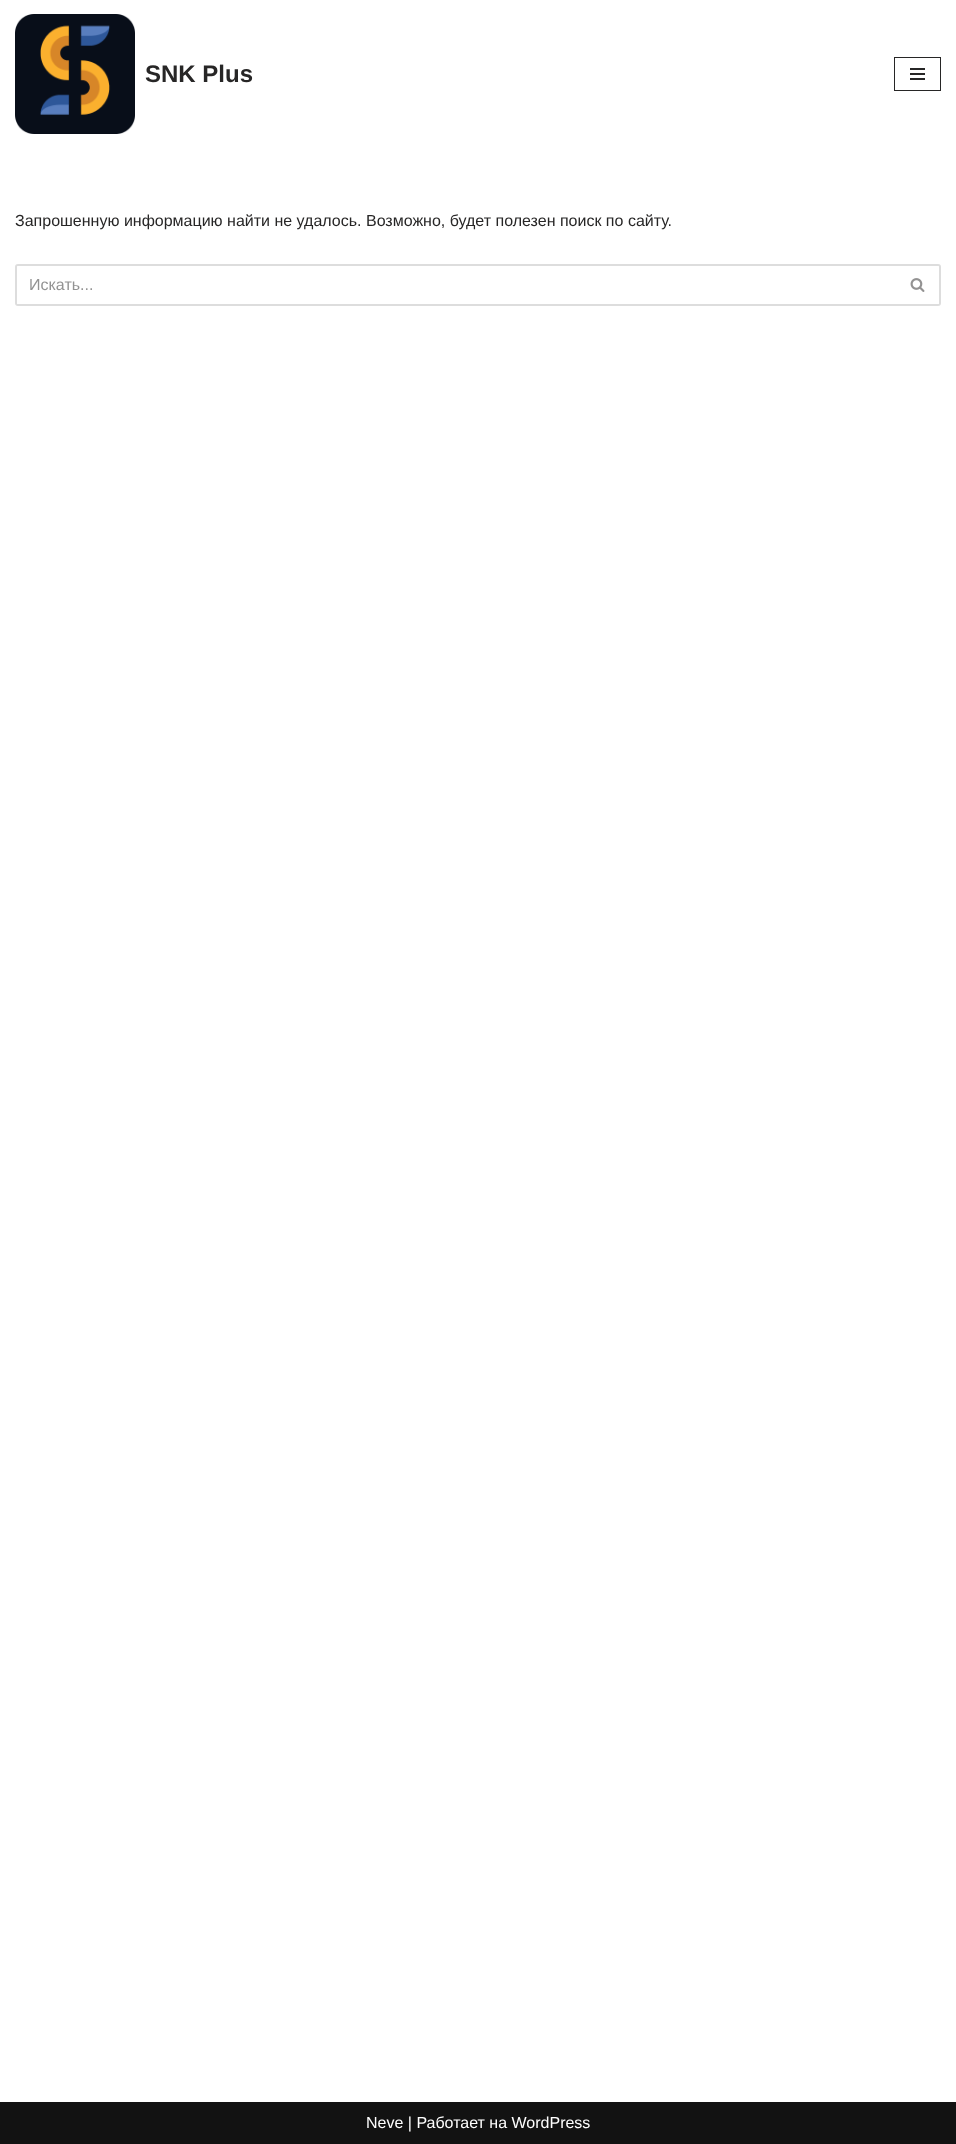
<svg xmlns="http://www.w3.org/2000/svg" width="956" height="2144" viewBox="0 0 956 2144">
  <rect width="100%" height="100%" fill="#ffffff"/>
  <image x="15" y="14" width="120" height="120" href="img1.png"/>
  <text x="145" y="82" font-family="Liberation Sans" font-size="24" font-weight="bold" fill="#272626">SNK Plus</text>
  <rect x="894.5" y="57.5" width="46" height="33" fill="none" stroke="#272626"/>
  <rect x="910" y="68" width="15" height="2" fill="#272626"/>
  <rect x="910" y="73" width="15" height="2" fill="#272626"/>
  <rect x="910" y="78" width="15" height="2" fill="#272626"/>
  <text x="15" y="226" font-family="Liberation Sans" font-size="16" fill="#272626">Запрошенную информацию найти не удалось. Возможно, будет полезен поиск по сайту.</text>
  <path d="M18 264H896V306H18C16 306 15 305 15 303V267C15 265 16 264 18 264ZM18 266H896V304H18C17 304 17 304 17 303V267C17 266 17 266 18 266Z" fill="#dddddd" fill-rule="evenodd"/>
  <text x="29" y="290" font-family="Liberation Sans" font-size="16" fill="#939393">Искать...</text>
  <path d="M896 264H938C940 264 941 265 941 267V303C941 305 940 306 938 306H896ZM896 266H938C939 266 939 266 939 267V303C939 304 939 304 938 304H896Z" fill="#dddddd" fill-rule="evenodd"/>
  <image x="910" y="278" width="15" height="14" href="img2.png"/>
  <rect x="0" y="2102" width="956" height="42" fill="#121212"/>
  <text x="366" y="2128" font-family="Liberation Sans" font-size="16" fill="#ffffff">Neve | Работает на WordPress</text>
</svg>
